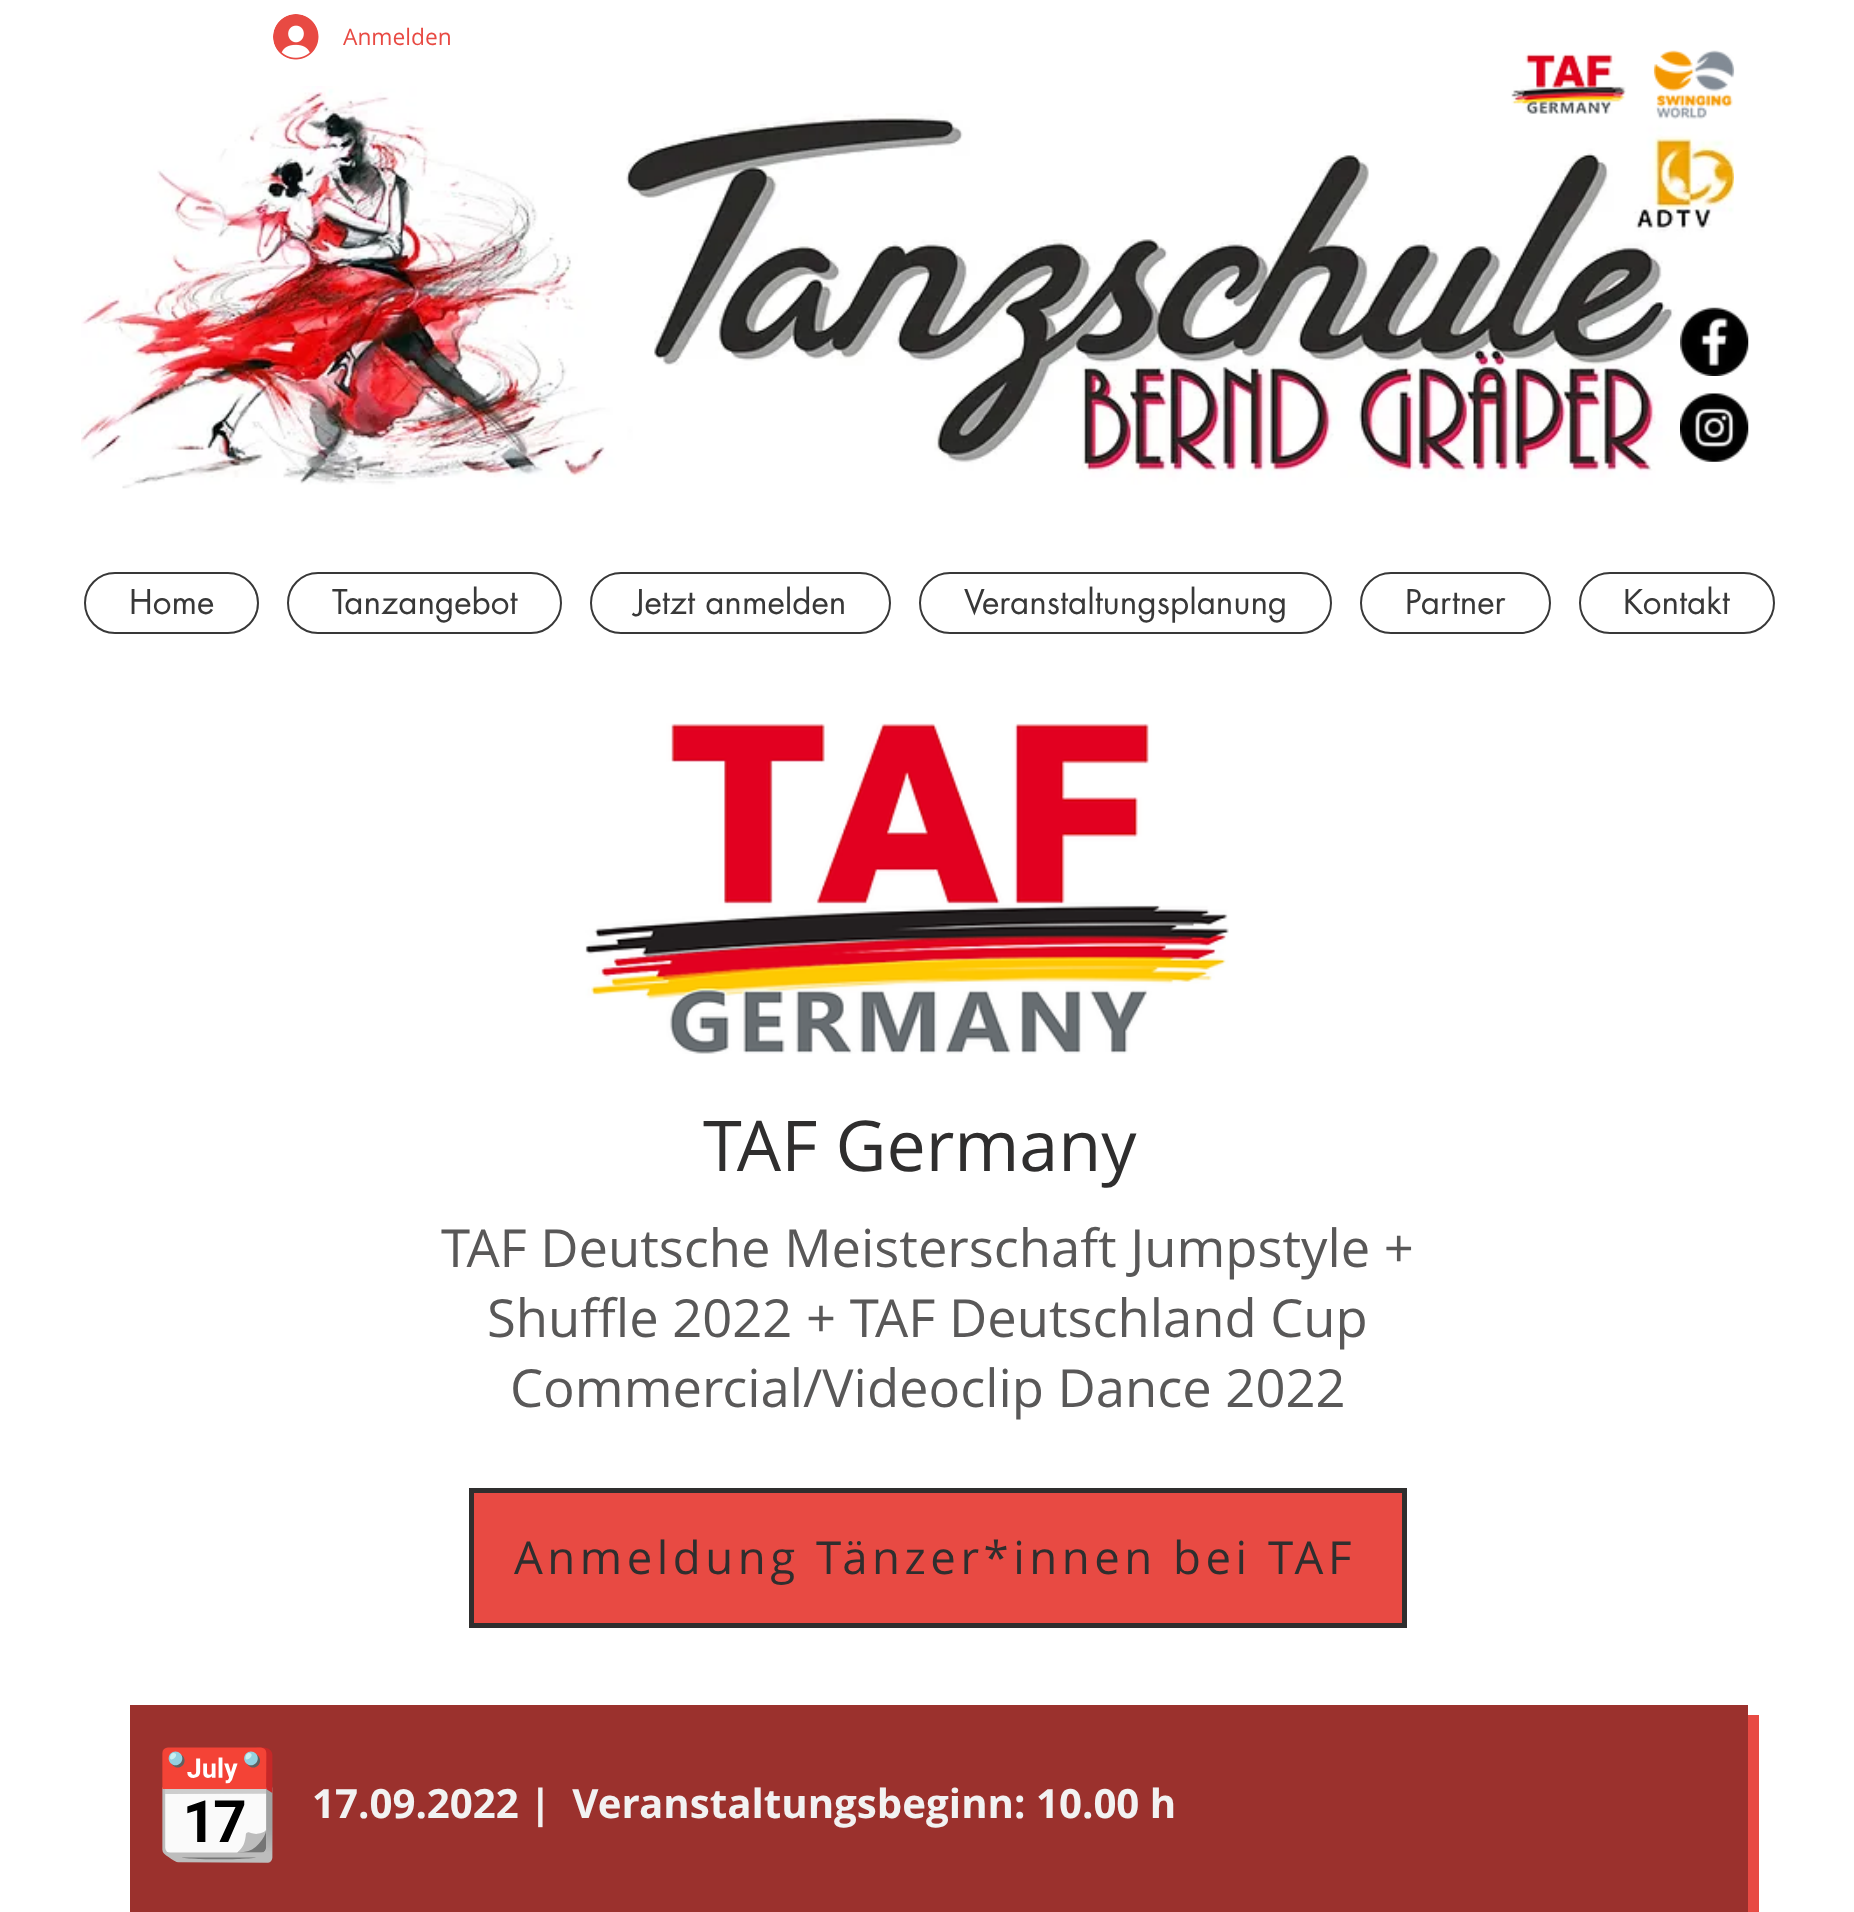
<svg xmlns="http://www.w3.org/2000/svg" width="1854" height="1912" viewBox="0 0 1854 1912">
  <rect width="100%" height="100%" fill="#ffffff"/>
  <image x="273" y="14" width="46" height="46" href="img1.png"/>
  <text x="343" y="45" font-family="Open Sans" font-size="22.75" fill="#e84a43">Anmelden</text>
  <image x="81" y="86" width="1653" height="403" href="img4.png"/>
  <image x="1511" y="53" width="115" height="61" href="img2.png"/>
  <image x="1653" y="50" width="82" height="70" href="img3.png"/>
  <image x="1680" y="307" width="69" height="69" href="img5.png"/>
  <image x="1680" y="393" width="69" height="69" href="img6.png"/>
  <rect x="85" y="573" width="173" height="60" rx="30" fill="none" stroke="#383838" stroke-width="2"/>
  <text x="129" y="614" font-family="futura" font-size="33.25" fill="#383838">Home</text>
  <rect x="288" y="573" width="273" height="60" rx="30" fill="none" stroke="#383838" stroke-width="2"/>
  <text x="332" y="614" font-family="futura" font-size="33.25" fill="#383838">Tanzangebot</text>
  <rect x="591" y="573" width="299" height="60" rx="30" fill="none" stroke="#383838" stroke-width="2"/>
  <text x="634" y="614" font-family="futura" font-size="33.25" fill="#383838">Jetzt anmelden</text>
  <rect x="920" y="573" width="411" height="60" rx="30" fill="none" stroke="#383838" stroke-width="2"/>
  <text x="964" y="614" font-family="futura" font-size="33.25" fill="#383838">Veranstaltungsplanung</text>
  <rect x="1361" y="573" width="189" height="60" rx="30" fill="none" stroke="#383838" stroke-width="2"/>
  <text x="1405" y="614" font-family="futura" font-size="33.25" fill="#383838">Partner</text>
  <rect x="1580" y="573" width="194" height="60" rx="30" fill="none" stroke="#383838" stroke-width="2"/>
  <text x="1623" y="614" font-family="futura" font-size="33.25" fill="#383838">Kontakt</text>
  <image x="585" y="723" width="644" height="331" href="img7.png"/>
  <text x="703" y="1171" font-family="Open Sans" font-size="70" fill="#2f2e2e">TAF Germany</text>
  <text x="441" y="1267" font-family="Open Sans" font-size="52.5" fill="#595858">TAF Deutsche Meisterschaft Jumpstyle +</text>
  <text x="487" y="1337" font-family="Open Sans" font-size="52.5" fill="#595858">Shuffle 2022 + TAF Deutschland Cup</text>
  <text x="510" y="1407" font-family="Open Sans" font-size="52.5" fill="#595858">Commercial/Videoclip Dance 2022</text>
  <rect x="471.5" y="1490.5" width="933" height="135" fill="#e84a43" stroke="#2f2e2e" stroke-width="5"/>
  <text x="514" y="1574" font-family="Open Sans" font-size="45.5" letter-spacing="4.55" fill="#2f2e2e">Anmeldung Tänzer*innen bei TAF</text>
  <path d="M140 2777V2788H1759V1715H1748V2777Z" fill="#e84a43"/>
  <rect x="130" y="1705" width="1618" height="207" fill="#9b312d"/>
  <text x="152" y="1841" font-family="Noto Color Emoji" font-size="105" font-weight="bold" fill="#f2f2f2">📆</text>
  <text x="312" y="1818" font-family="Open Sans" font-size="40.25" font-weight="bold" fill="#f2f2f2" xml:space="preserve">17.09.2022 |  Veranstaltungsbeginn: 10.00 h</text>
</svg>
